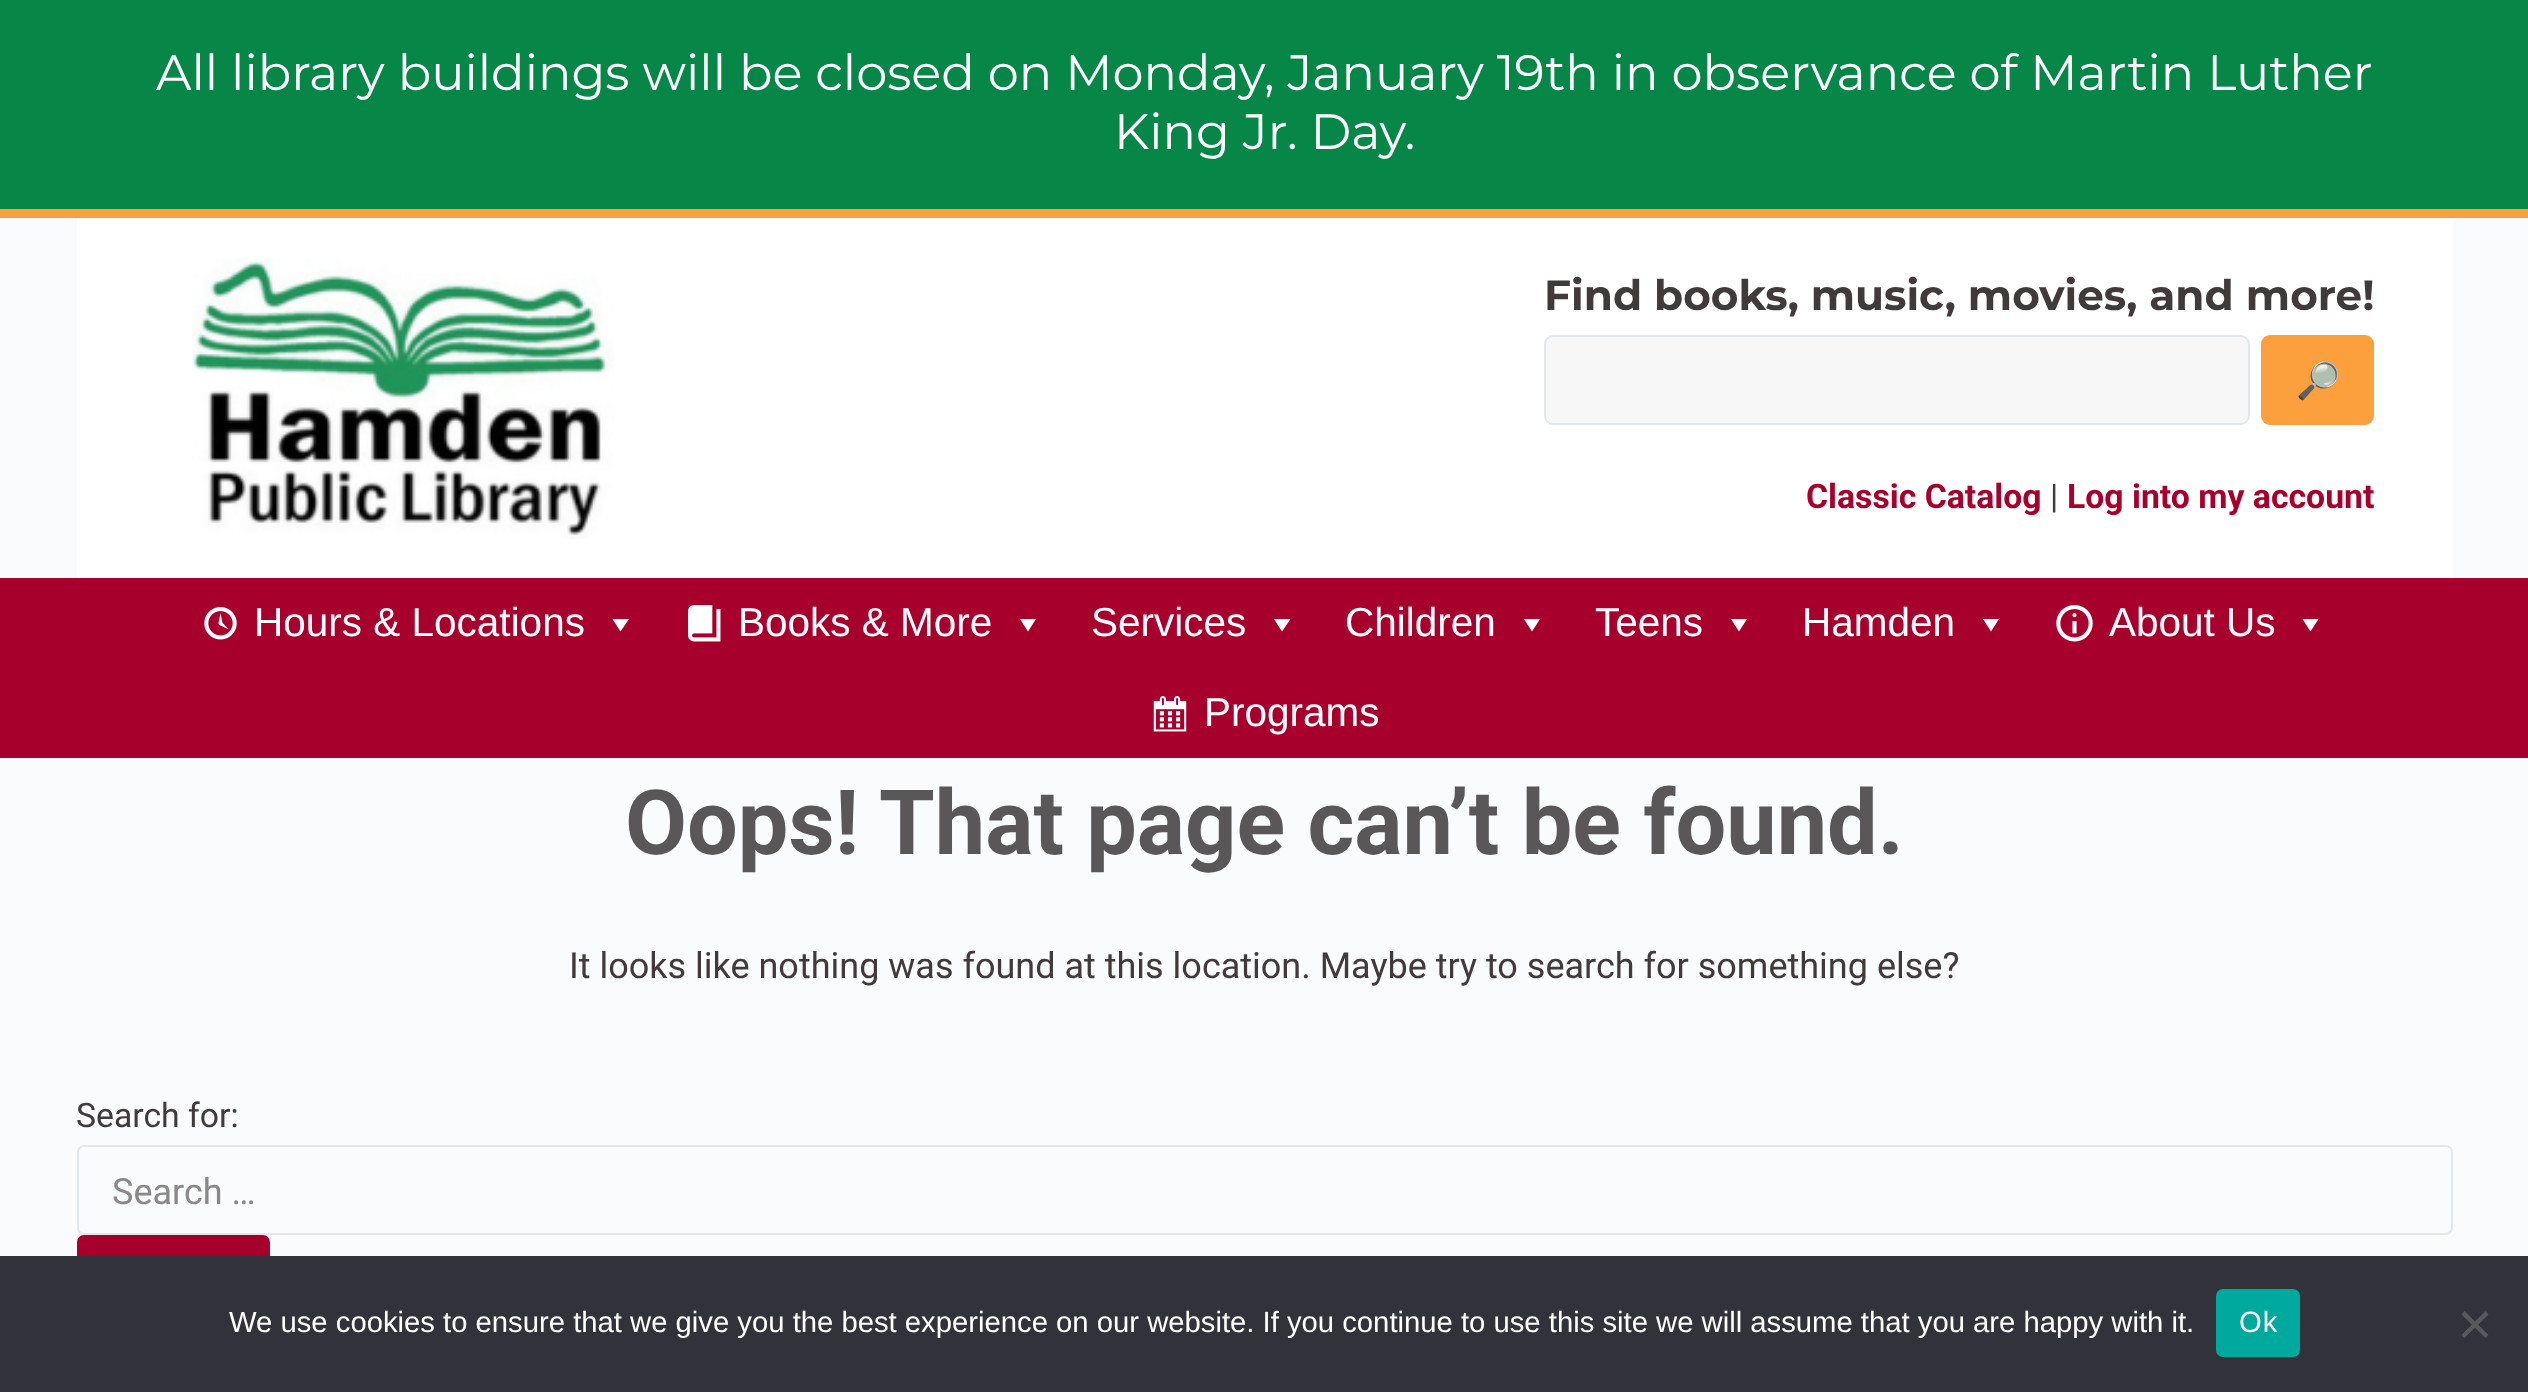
<svg xmlns="http://www.w3.org/2000/svg" width="2528" height="1392" viewBox="0 0 2528 1392">
  <rect width="100%" height="100%" fill="#fafbfc"/>
  <rect x="0" y="0" width="2528" height="209" fill="#068747"/>
  <text x="156" y="90" font-family="Montserrat" font-size="49.5" fill="#ffffff">All library buildings will be closed on Monday, January 19th in observance of Martin Luther</text>
  <text x="1114" y="149" font-family="Montserrat" font-size="49.5" fill="#ffffff">King Jr. Day.</text>
  <rect x="0" y="209" width="2528" height="9" fill="#fba03c"/>
  <rect x="77" y="218" width="2376" height="360" fill="#ffffff"/>
  <image x="192" y="258" width="422" height="281" href="img1.png"/>
  <text x="1544" y="310" font-family="Montserrat" font-size="42.2" font-weight="bold" fill="#403a3a">Find books, music, movies, and more!</text>
  <rect x="1545" y="336" width="704" height="88" rx="8" fill="#f7f7f7" stroke="#e1e8ed" stroke-width="2"/>
  <rect x="2261" y="335" width="113" height="90" rx="9" fill="#fba03c"/>
  <text x="2296" y="393" font-family="Noto Color Emoji" font-size="36" fill="#000000">🔎</text>
  <text x="1806" y="508" font-family="Roboto" font-size="33.75" font-weight="bold" fill="#a8002c">Classic Catalog</text>
  <text x="2050" y="508" font-family="Roboto" font-size="33.75" fill="#403a3a">|</text>
  <text x="2067" y="508" font-family="Roboto" font-size="33.75" font-weight="bold" fill="#a8002c">Log into my account</text>
  <rect x="0" y="578" width="2528" height="180" fill="#a8002c"/>
  <image x="204" y="607" width="33" height="33" href="img2.png"/>
  <text x="254" y="636" font-family="Liberation Sans" font-size="40.5" fill="#ffffff">Hours &amp; Locations</text>
  <path d="M629 619L620.5 631.5L612.5 619Z" fill="#ffffff"/>
  <image x="688" y="605" width="33" height="37" href="img3.png"/>
  <text x="738" y="636" font-family="Liberation Sans" font-size="40.5" fill="#ffffff">Books &amp; More</text>
  <path d="M1036 619L1028 631.5L1020 619Z" fill="#ffffff"/>
  <text x="1091" y="636" font-family="Liberation Sans" font-size="40.5" fill="#ffffff">Services</text>
  <path d="M1290.5 619L1282 631.5L1274 619Z" fill="#ffffff"/>
  <text x="1345" y="636" font-family="Liberation Sans" font-size="40.5" fill="#ffffff">Children</text>
  <path d="M1540 619L1532 631.5L1524 619Z" fill="#ffffff"/>
  <text x="1595" y="636" font-family="Liberation Sans" font-size="40.5" fill="#ffffff">Teens</text>
  <path d="M1747 619L1739 631.5L1731 619Z" fill="#ffffff"/>
  <text x="1802" y="636" font-family="Liberation Sans" font-size="40.5" fill="#ffffff">Hamden</text>
  <path d="M1999 619L1991 631.5L1983 619Z" fill="#ffffff"/>
  <image x="2056" y="605" width="37" height="37" href="img4.png"/>
  <text x="2109" y="636" font-family="Liberation Sans" font-size="40.5" fill="#ffffff">About Us</text>
  <path d="M2318.5 619L2310.5 631.5L2302.5 619Z" fill="#ffffff"/>
  <image x="1153" y="696" width="34" height="36" href="img5.png"/>
  <text x="1204" y="726" font-family="Liberation Sans" font-size="40.5" fill="#ffffff">Programs</text>
  <text x="625" y="854" font-family="Roboto" font-size="90" font-weight="bold" fill="#595757">Oops! That page can’t be found.</text>
  <text x="569" y="978" font-family="Roboto" font-size="36" fill="#403a3a">It looks like nothing was found at this location. Maybe try to search for something else?</text>
  <text x="76" y="1127" font-family="Roboto" font-size="33.75" fill="#403a3a">Search for:</text>
  <rect x="78" y="1146" width="2374" height="88" rx="6" fill="none" stroke="#e1e8ed" stroke-width="2"/>
  <text x="112" y="1204" font-family="Roboto" font-size="36" fill="#8a8788">Search …</text>
  <rect x="77" y="1235" width="193" height="90" rx="7" fill="#a8002c"/>
  <rect x="0" y="1256" width="2528" height="136" fill="#32323a"/>
  <text x="229" y="1332" font-family="Liberation Sans" font-size="29.25" fill="#ffffff">We use cookies to ensure that we give you the best experience on our website. If you continue to use this site we will assume that you are happy with it.</text>
  <rect x="2216" y="1289" width="84" height="68" rx="7" fill="#00a99d"/>
  <text x="2239" y="1332" font-family="Liberation Sans" font-size="29.25" letter-spacing="1" fill="#ffffff">Ok</text>
  <path d="M2485.5 1311L2488.5 1314.5L2464.5 1338L2461.5 1335Z" fill="#59595d"/>
  <path d="M2461.5 1314.5L2464.5 1311L2488.5 1335L2485.5 1338Z" fill="#59595d"/>
</svg>
